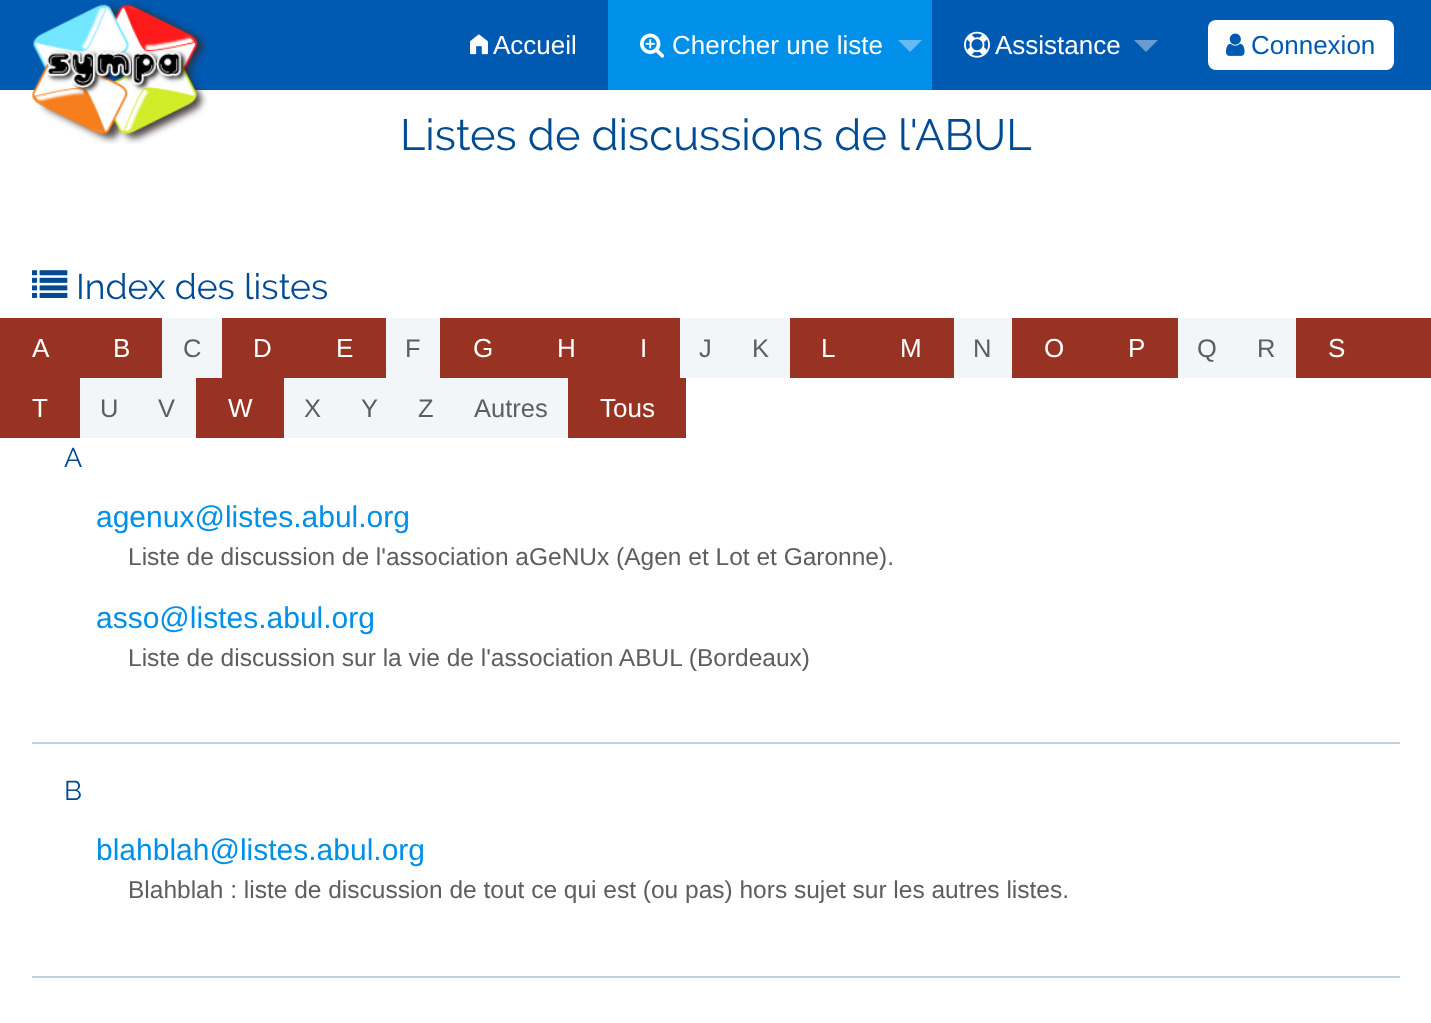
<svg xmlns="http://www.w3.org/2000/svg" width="1431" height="1023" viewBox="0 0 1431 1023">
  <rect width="100%" height="100%" fill="#005ab2"/>
  <rect x="0" y="90" width="1431" height="933" fill="#ffffff"/>
  <image x="31" y="1" width="177" height="143" href="img1.png"/>
  <image x="470" y="34" width="18" height="21" href="img2.png"/>
  <text x="493" y="54" font-family="Liberation Sans" font-size="26" fill="#ffffff">Accueil</text>
  <rect x="608" y="0" width="324" height="90" fill="#0090e9"/>
  <image x="640" y="33" width="25" height="25" href="img3.png"/>
  <text x="672" y="54" font-family="Liberation Sans" font-size="26" fill="#ffffff">Chercher une liste</text>
  <path d="M898 40H922L910 52Z" fill="#66bcf2"/>
  <image x="964" y="31" width="26" height="27" href="img4.png"/>
  <text x="995" y="54" font-family="Liberation Sans" font-size="26" fill="#ffffff">Assistance</text>
  <path d="M1134 40H1158L1146 52Z" fill="#669cd1"/>
  <rect x="1208" y="20" width="186" height="50" rx="8" fill="#ffffff"/>
  <image x="1226" y="33" width="19" height="23" href="img5.png"/>
  <text x="1251" y="54" font-family="Liberation Sans" font-size="26" fill="#005ab2">Connexion</text>
  <text x="400" y="150" font-family="Raleway" font-size="43.5" fill="#004b94">Listes de discussions de l'ABUL</text>
  <image x="32" y="270" width="36" height="28" href="img6.png"/>
  <text x="76" y="299" font-family="Raleway" font-size="35.5" fill="#004b94">Index des listes</text>
  <rect x="0" y="318" width="1431" height="60" fill="#983222"/>
  <text x="32" y="357" font-family="Liberation Sans" font-size="26" fill="#ffffff">A</text>
  <text x="113" y="357" font-family="Liberation Sans" font-size="26" fill="#ffffff">B</text>
  <rect x="162" y="318" width="60" height="60" fill="#f2f6f9"/>
  <text x="183" y="357" font-family="Liberation Sans" font-size="25.5" fill="#5e5e5e">C</text>
  <text x="253" y="357" font-family="Liberation Sans" font-size="26" fill="#ffffff">D</text>
  <text x="336" y="357" font-family="Liberation Sans" font-size="26" fill="#ffffff">E</text>
  <rect x="386" y="318" width="54" height="60" fill="#f2f6f9"/>
  <text x="405" y="357" font-family="Liberation Sans" font-size="25.5" fill="#5e5e5e">F</text>
  <text x="473" y="357" font-family="Liberation Sans" font-size="26" fill="#ffffff">G</text>
  <text x="557" y="357" font-family="Liberation Sans" font-size="26" fill="#ffffff">H</text>
  <text x="640" y="357" font-family="Liberation Sans" font-size="26" fill="#ffffff">I</text>
  <rect x="680" y="318" width="110" height="60" fill="#f2f6f9"/>
  <text x="699" y="357" font-family="Liberation Sans" font-size="25.5" fill="#5e5e5e">J</text>
  <text x="752" y="357" font-family="Liberation Sans" font-size="25.5" fill="#5e5e5e">K</text>
  <text x="821" y="357" font-family="Liberation Sans" font-size="26" fill="#ffffff">L</text>
  <text x="900" y="357" font-family="Liberation Sans" font-size="26" fill="#ffffff">M</text>
  <rect x="954" y="318" width="58" height="60" fill="#f2f6f9"/>
  <text x="973" y="357" font-family="Liberation Sans" font-size="25.5" fill="#5e5e5e">N</text>
  <text x="1044" y="357" font-family="Liberation Sans" font-size="26" fill="#ffffff">O</text>
  <text x="1128" y="357" font-family="Liberation Sans" font-size="26" fill="#ffffff">P</text>
  <rect x="1178" y="318" width="118" height="60" fill="#f2f6f9"/>
  <text x="1197" y="357" font-family="Liberation Sans" font-size="25.5" fill="#5e5e5e">Q</text>
  <text x="1257" y="357" font-family="Liberation Sans" font-size="25.5" fill="#5e5e5e">R</text>
  <text x="1328" y="357" font-family="Liberation Sans" font-size="26" fill="#ffffff">S</text>
  <rect x="0" y="378" width="80" height="60" fill="#983222"/>
  <text x="32" y="417" font-family="Liberation Sans" font-size="26" fill="#ffffff">T</text>
  <rect x="80" y="378" width="116" height="60" fill="#f2f6f9"/>
  <text x="100" y="417" font-family="Liberation Sans" font-size="25.5" fill="#5e5e5e">U</text>
  <text x="158" y="417" font-family="Liberation Sans" font-size="25.5" fill="#5e5e5e">V</text>
  <rect x="196" y="378" width="88" height="60" fill="#983222"/>
  <text x="228" y="417" font-family="Liberation Sans" font-size="26" fill="#ffffff">W</text>
  <rect x="284" y="378" width="284" height="60" fill="#f2f6f9"/>
  <text x="304" y="417" font-family="Liberation Sans" font-size="25.5" fill="#5e5e5e">X</text>
  <text x="361" y="417" font-family="Liberation Sans" font-size="25.5" fill="#5e5e5e">Y</text>
  <text x="418" y="417" font-family="Liberation Sans" font-size="25.5" fill="#5e5e5e">Z</text>
  <text x="474" y="417" font-family="Liberation Sans" font-size="25.5" fill="#5e5e5e">Autres</text>
  <rect x="568" y="378" width="118" height="60" fill="#983222"/>
  <text x="600" y="417" font-family="Liberation Sans" font-size="26" fill="#ffffff">Tous</text>
  <text x="64" y="467" font-family="Raleway" font-size="27" fill="#004b94">A</text>
  <text x="96" y="527" font-family="Liberation Sans" font-size="30" fill="#0090e9">agenux@listes.abul.org</text>
  <text x="128" y="565" font-family="Liberation Sans" font-size="24.5" fill="#5e5e5e">Liste de discussion de l'association aGeNUx (Agen et Lot et Garonne).</text>
  <text x="96" y="628" font-family="Liberation Sans" font-size="30" fill="#0090e9">asso@listes.abul.org</text>
  <text x="128" y="666" font-family="Liberation Sans" font-size="24.5" fill="#5e5e5e">Liste de discussion sur la vie de l'association ABUL (Bordeaux)</text>
  <rect x="32" y="742" width="1368" height="2" fill="#bfd2e1"/>
  <text x="64" y="800" font-family="Raleway" font-size="27" fill="#004b94">B</text>
  <text x="96" y="860" font-family="Liberation Sans" font-size="30" fill="#0090e9">blahblah@listes.abul.org</text>
  <text x="128" y="898" font-family="Liberation Sans" font-size="24.5" fill="#5e5e5e">Blahblah : liste de discussion de tout ce qui est (ou pas) hors sujet sur les autres listes.</text>
  <rect x="32" y="976" width="1368" height="2" fill="#bfd2e1"/>
</svg>
